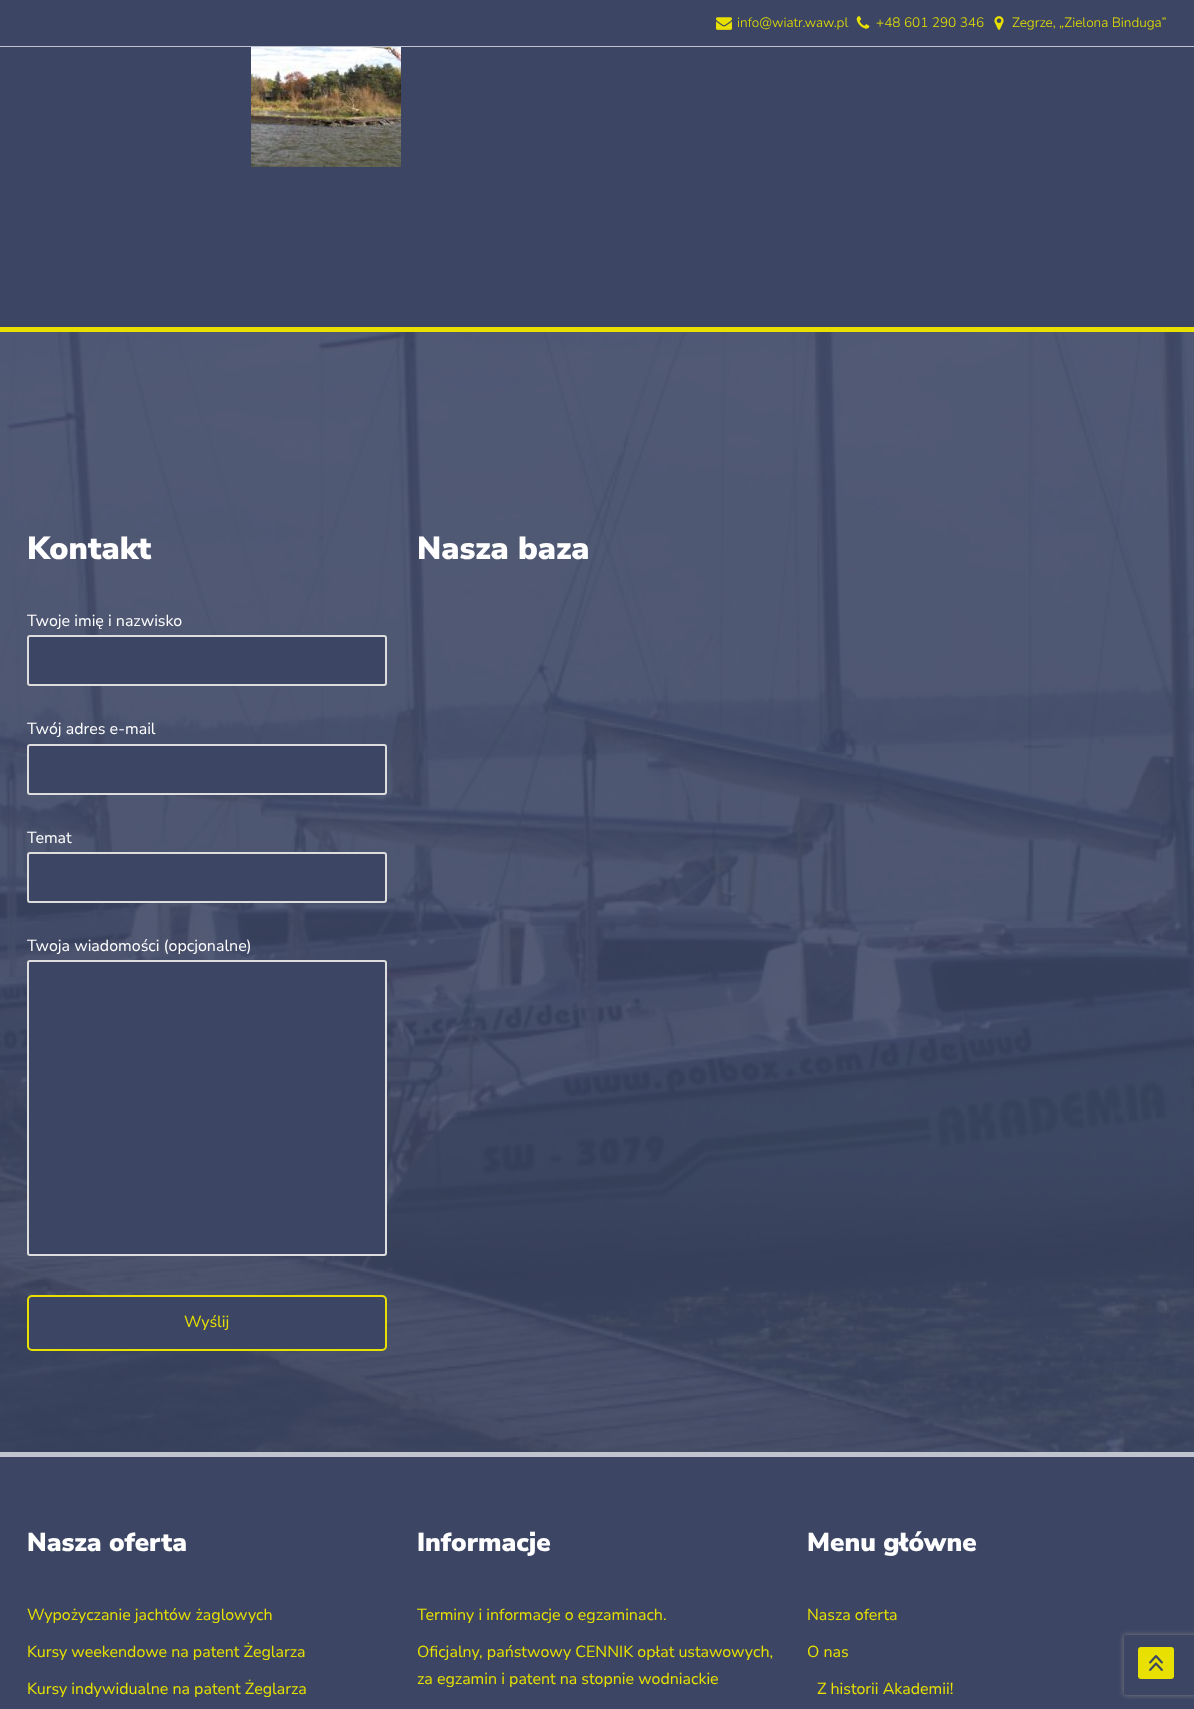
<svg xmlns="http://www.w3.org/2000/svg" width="1194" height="1709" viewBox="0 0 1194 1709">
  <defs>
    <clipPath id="clip1"><path d="M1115 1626H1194V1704H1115ZM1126 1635H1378C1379 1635 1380 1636 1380 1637V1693C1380 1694 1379 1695 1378 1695H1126C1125 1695 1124 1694 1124 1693V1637C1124 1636 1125 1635 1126 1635Z" clip-rule="evenodd"/></clipPath>
    <filter id="blur1" x="-50%" y="-200%" width="200%" height="500%"><feGaussianBlur stdDeviation="2.5"/></filter>
  </defs>
  <rect width="100%" height="100%" fill="#3c4664"/>
  <rect x="0" y="46" width="1194" height="1" fill="#bfc4cf"/>
  <image x="716" y="17" width="16" height="13" href="img1.png"/>
  <text x="737" y="27" font-family="Nunito Sans" font-size="13.6" font-weight="300" fill="#e7e000">info@wiatr.waw.pl</text>
  <image x="856" y="16" width="14" height="13" href="img2.png"/>
  <text x="876" y="27" font-family="Nunito Sans" font-size="13.6" font-weight="300" fill="#e7e000">+48 601 290 346</text>
  <image x="994" y="16" width="10" height="14" href="img3.png"/>
  <text x="1012" y="27" font-family="Nunito Sans" font-size="13.6" font-weight="300" fill="#e7e000">Zegrze, „Zielona Binduga”</text>
  <image x="251" y="47" width="150" height="120" href="img4.png"/>
  <image x="0" y="332" width="1194" height="1120" href="img5.png"/>
  <rect x="0" y="327" width="1194" height="5" fill="#e7e000"/>
  <text x="27" y="559" font-family="Nunito Sans" font-size="32" font-weight="900" fill="#ffffff">Kontakt</text>
  <text x="27" y="626" font-family="Nunito Sans" font-size="16" fill="#ffffff">Twoje imię i nazwisko</text>
  <rect x="28" y="636" width="358" height="49" rx="2" fill="#3c4664" stroke="#dddddd" stroke-width="2"/>
  <text x="27" y="734" font-family="Nunito Sans" font-size="16" fill="#ffffff">Twój adres e-mail</text>
  <rect x="28" y="745" width="358" height="49" rx="2" fill="#3c4664" stroke="#dddddd" stroke-width="2"/>
  <text x="27" y="843" font-family="Nunito Sans" font-size="16" fill="#ffffff">Temat</text>
  <rect x="28" y="853" width="358" height="49" rx="2" fill="#3c4664" stroke="#dddddd" stroke-width="2"/>
  <text x="27" y="951" font-family="Nunito Sans" font-size="16" fill="#ffffff">Twoja wiadomości (opcjonalne)</text>
  <rect x="28" y="961" width="358" height="294" rx="2" fill="#3c4664" stroke="#dddddd" stroke-width="2"/>
  <rect x="28" y="1296" width="358" height="54" rx="4" fill="#3c4664" stroke="#e7e000" stroke-width="2"/>
  <text x="184" y="1327" font-family="Nunito Sans" font-size="16" fill="#e7e000">Wyślij</text>
  <text x="417" y="559" font-family="Nunito Sans" font-size="32" font-weight="900" fill="#ffffff">Nasza baza</text>
  <rect x="0" y="1452" width="1194" height="5" fill="#bfc4cf"/>
  <text x="27" y="1551" font-family="Nunito Sans" font-size="26" font-weight="900" fill="#ffffff">Nasza oferta</text>
  <text x="27" y="1620" font-family="Nunito Sans" font-size="16" fill="#e7e000">Wypożyczanie jachtów żaglowych</text>
  <text x="27" y="1657" font-family="Nunito Sans" font-size="16" fill="#e7e000">Kursy weekendowe na patent Żeglarza</text>
  <text x="27" y="1694" font-family="Nunito Sans" font-size="16" fill="#e7e000">Kursy indywidualne na patent Żeglarza</text>
  <text x="417" y="1551" font-family="Nunito Sans" font-size="26" font-weight="900" fill="#ffffff">Informacje</text>
  <text x="417" y="1620" font-family="Nunito Sans" font-size="16" fill="#e7e000">Terminy i informacje o egzaminach.</text>
  <text x="417" y="1657" font-family="Nunito Sans" font-size="16" fill="#e7e000">Oficjalny, państwowy CENNIK opłat ustawowych,</text>
  <text x="417" y="1684" font-family="Nunito Sans" font-size="16" fill="#e7e000">za egzamin i patent na stopnie wodniackie</text>
  <text x="807" y="1551" font-family="Nunito Sans" font-size="26" font-weight="900" fill="#ffffff">Menu główne</text>
  <text x="807" y="1620" font-family="Nunito Sans" font-size="16" fill="#e7e000">Nasza oferta</text>
  <text x="807" y="1657" font-family="Nunito Sans" font-size="16" fill="#e7e000">O nas</text>
  <text x="817" y="1694" font-family="Nunito Sans" font-size="16" fill="#e7e000">Z historii Akademii!</text>
  <g clip-path="url(#clip1)">
    <rect x="1124" y="1635" width="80" height="60" rx="2" fill="#808080" filter="url(#blur1)"/>
  </g>
  <rect x="1138" y="1647" width="36" height="32" rx="3" fill="#e7e000"/>
  <image x="1149" y="1655" width="14" height="16" href="img6.png"/>
</svg>
